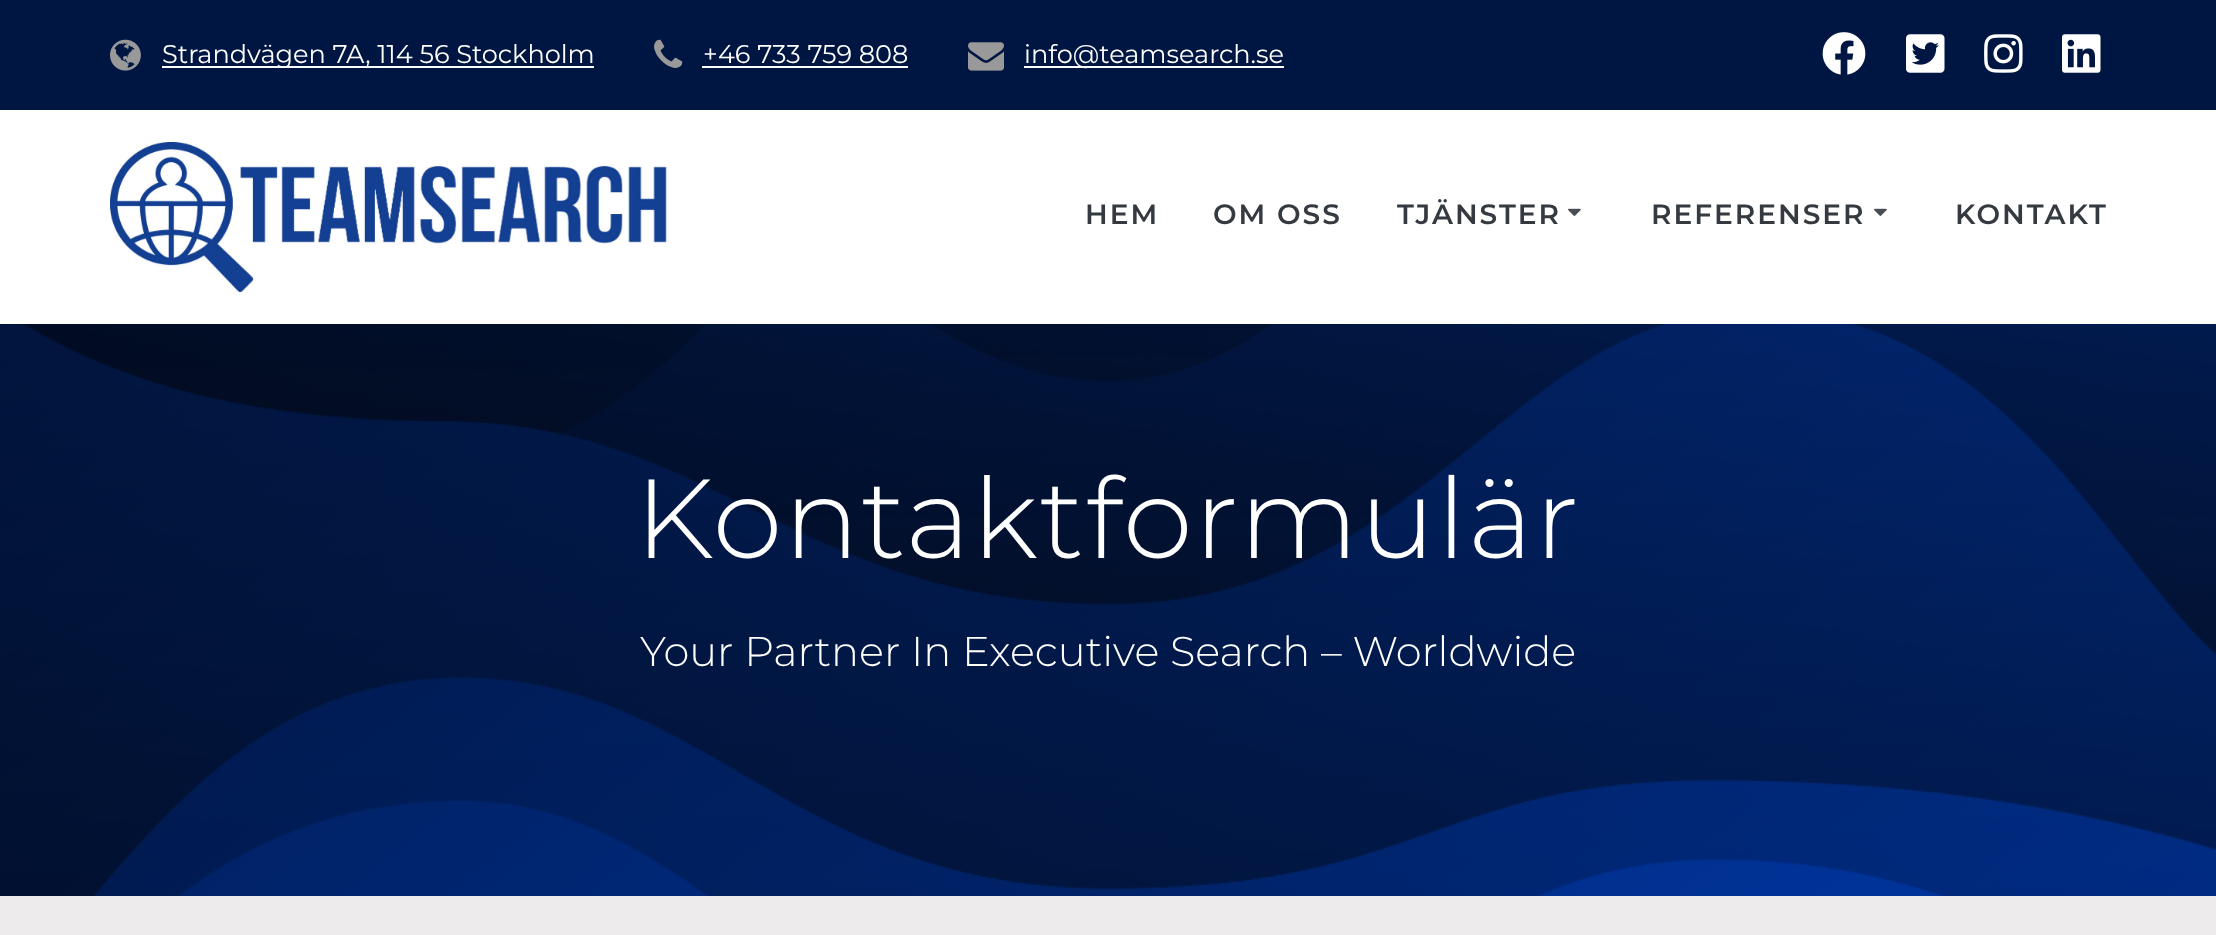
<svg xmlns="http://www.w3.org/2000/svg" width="2216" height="935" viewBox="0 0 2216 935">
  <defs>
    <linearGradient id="g1" gradientUnits="userSpaceOnUse" x1="471" y1="-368" x2="1745" y2="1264"><stop offset="0" stop-color="#001642"/><stop offset="1" stop-color="#0036a2"/></linearGradient>
  </defs>
  <rect width="100%" height="100%" fill="#ffffff"/>
  <rect x="0" y="0" width="2216" height="110" fill="#001642"/>
  <image x="110" y="39" width="31" height="32" href="img1.png"/>
  <rect x="162" y="66" width="432" height="2" fill="#ffffff"/>
  <text x="162" y="63" font-family="Montserrat" font-size="25.6" fill="#ffffff">Strandvägen 7A, 114 56 Stockholm</text>
  <image x="654" y="39" width="29" height="29" href="img2.png"/>
  <text x="703" y="63" font-family="Montserrat" font-size="25.6" fill="#ffffff">+46 733 759 808</text>
  <rect x="702" y="66" width="206" height="2" fill="#ffffff"/>
  <image x="968" y="42" width="36" height="29" href="img3.png"/>
  <rect x="1024" y="66" width="260" height="2" fill="#ffffff"/>
  <text x="1024" y="63" font-family="Montserrat" font-size="25.6" fill="#ffffff">info@teamsearch.se</text>
  <image x="1822" y="32" width="44" height="43" href="img4.png"/>
  <image x="1906" y="34" width="39" height="39" href="img5.png"/>
  <image x="1984" y="34" width="39" height="39" href="img6.png"/>
  <image x="2062" y="34" width="39" height="39" href="img7.png"/>
  <image x="110" y="142" width="557" height="150" href="img8.png"/>
  <text x="1085" y="224" font-family="Montserrat" font-size="28" font-weight="600" letter-spacing="2" fill="#343a40">HEM</text>
  <text x="1213" y="224" font-family="Montserrat" font-size="28" font-weight="600" letter-spacing="2" fill="#343a40">OM OSS</text>
  <text x="1397" y="224" font-family="Montserrat" font-size="28" font-weight="600" letter-spacing="2" fill="#343a40">TJÄNSTER</text>
  <image x="1568" y="208" width="13" height="8" href="img9.png"/>
  <text x="1651" y="224" font-family="Montserrat" font-size="28" font-weight="600" letter-spacing="2" fill="#343a40">REFERENSER</text>
  <image x="1874" y="208" width="13" height="8" href="img9.png"/>
  <text x="1955" y="224" font-family="Montserrat" font-size="28" font-weight="600" letter-spacing="2" fill="#343a40">KONTAKT</text>
  <rect x="0" y="324" width="2216" height="572" fill="url(#g1)"/>
  <image x="0" y="324" width="2216" height="572" href="img10.png"/>
  <text x="635" y="558" font-family="Montserrat" font-size="112" font-weight="300" letter-spacing="1.75" fill="#ffffff">Kontaktformulär</text>
  <text x="640" y="666" font-family="Montserrat" font-size="41.6" font-weight="300" fill="#ffffff">Your Partner In Executive Search – Worldwide</text>
  <rect x="0" y="896" width="2216" height="39" fill="#edebeb"/>
</svg>
